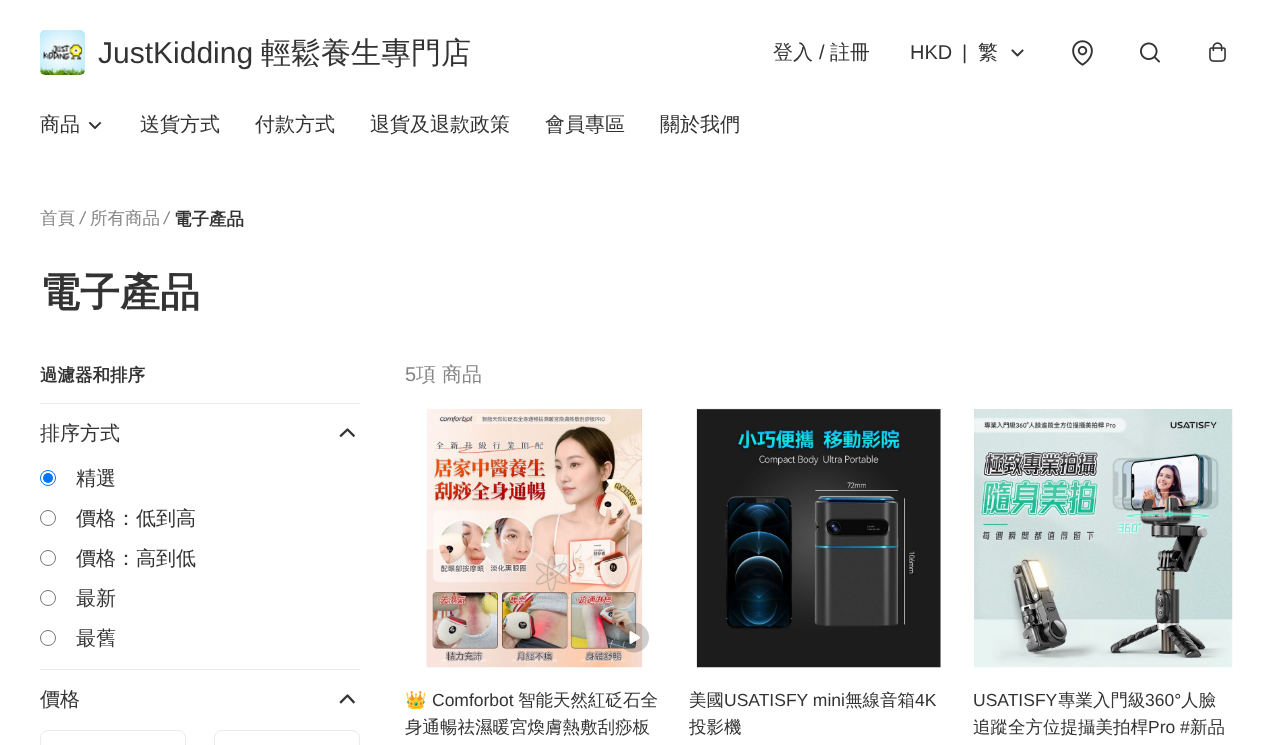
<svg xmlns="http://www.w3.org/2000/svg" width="1272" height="745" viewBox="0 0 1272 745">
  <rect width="100%" height="100%" fill="#ffffff"/>
  <image x="40" y="30" width="45" height="45" href="img1.png"/>
  <text x="98" y="63" font-family="Liberation Sans" font-size="30" fill="#333333">JustKidding</text>
  <text x="261" y="63" font-family="WenQuanYi Zen Hei" font-size="30" font-weight="500" fill="#333333">輕鬆養生專門店</text>
  <text x="773" y="59" font-family="WenQuanYi Zen Hei" font-size="20" font-weight="500" fill="#333333">登入</text>
  <text x="819" y="59" font-family="Liberation Sans" font-size="20" fill="#333333">/</text>
  <text x="830" y="59" font-family="WenQuanYi Zen Hei" font-size="20" font-weight="500" fill="#333333">註冊</text>
  <text x="910" y="59" font-family="Liberation Sans" font-size="20" fill="#333333">HKD</text>
  <text x="962" y="59" font-family="Liberation Sans" font-size="20" fill="#333333">|</text>
  <text x="978" y="59" font-family="WenQuanYi Zen Hei" font-size="20" font-weight="500" fill="#333333">繁</text>
  <path d="M1012.5 50.5L1017.5 55.5L1022.5 50.5" fill="none" stroke="#333333" stroke-width="1.9" stroke-linecap="square" stroke-linejoin="round"/>
  <image x="1072" y="40" width="21" height="26" href="img2.png"/>
  <image x="1140" y="42" width="20" height="21" href="img3.png"/>
  <image x="1209" y="42" width="17" height="20" href="img4.png"/>
  <text x="40" y="131" font-family="WenQuanYi Zen Hei" font-size="20" font-weight="500" fill="#333333">商品</text>
  <path d="M90 123L95 128L100 123" fill="none" stroke="#333333" stroke-width="1.9" stroke-linecap="square" stroke-linejoin="round"/>
  <text x="140" y="131" font-family="WenQuanYi Zen Hei" font-size="20" font-weight="500" fill="#333333">送貨方式</text>
  <text x="255" y="131" font-family="WenQuanYi Zen Hei" font-size="20" font-weight="500" fill="#333333">付款方式</text>
  <text x="370" y="131" font-family="WenQuanYi Zen Hei" font-size="20" font-weight="500" fill="#333333">退貨及退款政策</text>
  <text x="545" y="131" font-family="WenQuanYi Zen Hei" font-size="20" font-weight="500" fill="#333333">會員專區</text>
  <text x="660" y="131" font-family="WenQuanYi Zen Hei" font-size="20" font-weight="500" fill="#333333">關於我們</text>
  <text x="40" y="224" font-family="WenQuanYi Zen Hei" font-size="17.5" font-weight="500" fill="#858585">首頁</text>
  <text x="80" y="224" font-family="Liberation Sans" font-size="17.5" font-style="italic" fill="#858585">/</text>
  <text x="90" y="224" font-family="WenQuanYi Zen Hei" font-size="17.5" font-weight="500" fill="#858585">所有商品</text>
  <text x="164" y="224" font-family="Liberation Sans" font-size="17.5" font-style="italic" fill="#858585">/</text>
  <text x="174" y="225" font-family="WenQuanYi Zen Hei" font-size="17.5" font-weight="bold" fill="#333333">電子產品</text>
  <text x="40" y="306" font-family="WenQuanYi Zen Hei" font-size="40" font-weight="bold" fill="#333333">電子產品</text>
  <text x="40" y="381" font-family="WenQuanYi Zen Hei" font-size="17.5" font-weight="bold" fill="#333333">過濾器和排序</text>
  <rect x="40" y="403" width="320" height="1" fill="#ebebeb"/>
  <text x="40" y="440" font-family="WenQuanYi Zen Hei" font-size="20" font-weight="500" fill="#333333">排序方式</text>
  <path d="M353.5 435.5L347.5 429.5L341 435.5" fill="none" stroke="#333333" stroke-width="2.3" stroke-linecap="square" stroke-linejoin="round"/>
  <circle cx="48" cy="478" r="7.5" fill="none" stroke="#0075ff"/>
  <circle cx="48" cy="478" r="5" fill="#0075ff"/>
  <text x="76" y="485" font-family="WenQuanYi Zen Hei" font-size="20" font-weight="500" fill="#333333">精選</text>
  <circle cx="48" cy="518" r="7.5" fill="none" stroke="#767676"/>
  <text x="76" y="525" font-family="WenQuanYi Zen Hei" font-size="20" font-weight="500" fill="#333333">價格：低到高</text>
  <circle cx="48" cy="558" r="7.5" fill="none" stroke="#767676"/>
  <text x="76" y="565" font-family="WenQuanYi Zen Hei" font-size="20" font-weight="500" fill="#333333">價格：高到低</text>
  <circle cx="48" cy="598" r="7.5" fill="none" stroke="#767676"/>
  <text x="76" y="605" font-family="WenQuanYi Zen Hei" font-size="20" font-weight="500" fill="#333333">最新</text>
  <circle cx="48" cy="638" r="7.5" fill="none" stroke="#767676"/>
  <text x="76" y="645" font-family="WenQuanYi Zen Hei" font-size="20" font-weight="500" fill="#333333">最舊</text>
  <rect x="40" y="669" width="320" height="1" fill="#ebebeb"/>
  <text x="40" y="706" font-family="WenQuanYi Zen Hei" font-size="20" font-weight="500" fill="#333333">價格</text>
  <path d="M353.5 702L347.5 695.5L341 702" fill="none" stroke="#333333" stroke-width="2.3" stroke-linecap="square" stroke-linejoin="round"/>
  <rect x="40.5" y="730.5" width="145" height="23" rx="7.5" fill="none" stroke="#ebebeb"/>
  <rect x="214.5" y="730.5" width="145" height="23" rx="7.5" fill="none" stroke="#ebebeb"/>
  <text x="405" y="381" font-family="Liberation Sans" font-size="20" fill="#858585">5</text>
  <text x="416" y="381" font-family="WenQuanYi Zen Hei" font-size="20" font-weight="500" fill="#858585">項 商品</text>
  <image x="426" y="409" width="218" height="259" href="img5.png"/>
  <image x="619" y="623" width="30" height="30" href="img6.png"/>
  <text x="405" y="706" font-family="Noto Color Emoji" font-size="17.5" fill="#333333">👑</text>
  <text x="432" y="706" font-family="Liberation Sans" font-size="17.5" fill="#333333">Comforbot</text>
  <text x="518" y="706" font-family="WenQuanYi Zen Hei" font-size="17.5" font-weight="500" fill="#333333">智能天然紅砭石全</text>
  <text x="405" y="733" font-family="WenQuanYi Zen Hei" font-size="17.5" font-weight="500" fill="#333333">身通暢祛濕暖宮煥膚熱敷刮痧板</text>
  <image x="696" y="408" width="245" height="260" href="img7.png"/>
  <text x="689" y="706" font-family="WenQuanYi Zen Hei" font-size="17.5" font-weight="500" fill="#333333">美國</text>
  <text x="724" y="706" font-family="Liberation Sans" font-size="17.5" fill="#333333">USATISFY mini</text>
  <text x="845" y="706" font-family="WenQuanYi Zen Hei" font-size="17.5" font-weight="500" fill="#333333">無線音箱</text>
  <text x="915" y="706" font-family="Liberation Sans" font-size="17.5" fill="#333333">4K</text>
  <text x="689" y="733" font-family="WenQuanYi Zen Hei" font-size="17.5" font-weight="500" fill="#333333">投影機</text>
  <image x="974" y="409" width="259" height="259" href="img8.png"/>
  <text x="973" y="706" font-family="Liberation Sans" font-size="17.5" fill="#333333">USATISFY</text>
  <text x="1058" y="706" font-family="WenQuanYi Zen Hei" font-size="17.5" font-weight="500" fill="#333333">專業入門級</text>
  <text x="1145" y="706" font-family="Liberation Sans" font-size="17.5" fill="#333333">360°</text>
  <text x="1181" y="706" font-family="WenQuanYi Zen Hei" font-size="17.5" font-weight="500" fill="#333333">人臉</text>
  <text x="973" y="733" font-family="WenQuanYi Zen Hei" font-size="17.5" font-weight="500" fill="#333333">追蹤全方位提攝美拍桿</text>
  <text x="1148" y="733" font-family="Liberation Sans" font-size="17.5" fill="#333333">Pro #</text>
  <text x="1190" y="733" font-family="WenQuanYi Zen Hei" font-size="17.5" font-weight="500" fill="#333333">新品</text>
</svg>
